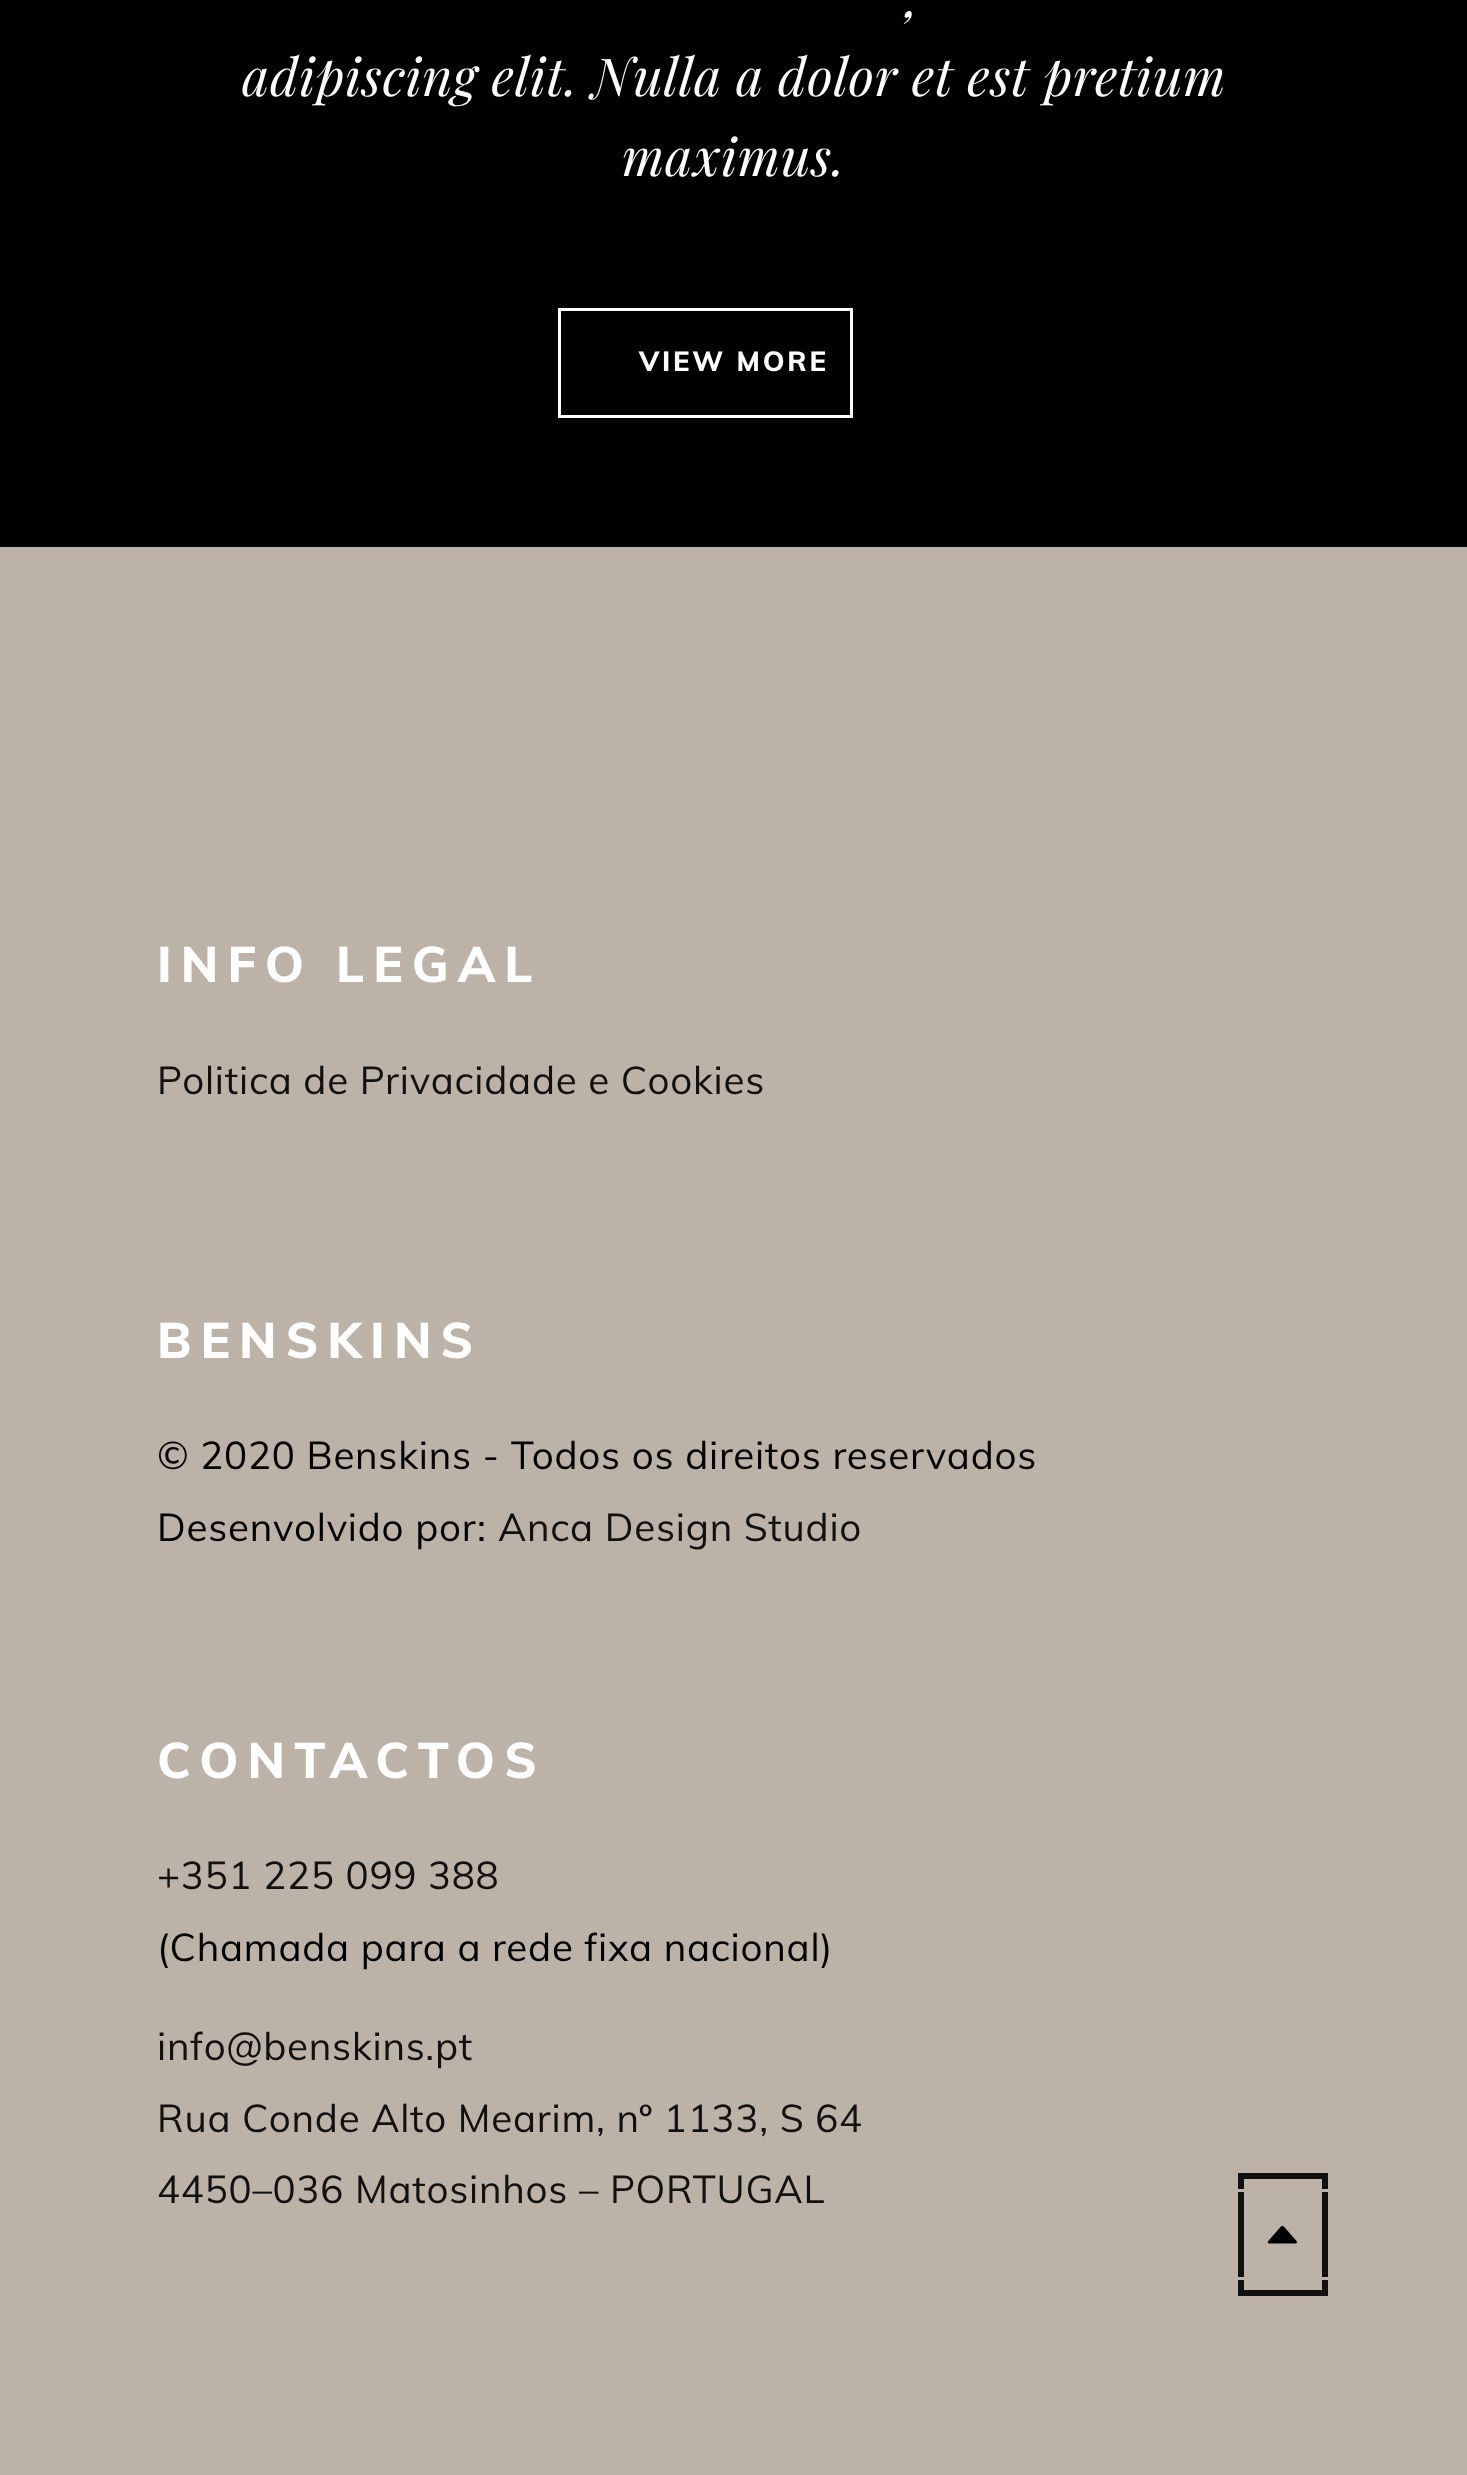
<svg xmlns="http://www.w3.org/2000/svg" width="1467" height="2475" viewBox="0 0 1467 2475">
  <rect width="100%" height="100%" fill="#000000"/>
  <text x="905" y="17" font-family="Playfair Display" font-size="52.25" font-style="italic" letter-spacing="0.75" fill="#ffffff">,</text>
  <text x="242" y="96" font-family="Playfair Display" font-size="52.25" font-style="italic" letter-spacing="0.75" fill="#ffffff">adipiscing elit. Nulla a dolor et est pretium</text>
  <text x="622" y="176" font-family="Playfair Display" font-size="52.25" font-style="italic" letter-spacing="0.75" fill="#ffffff">maximus.</text>
  <rect x="559.5" y="309.5" width="292" height="107" fill="none" stroke="#ffffff" stroke-width="3"/>
  <text x="639" y="371" font-family="Muli" font-size="27.5" font-weight="800" letter-spacing="2.75" fill="#ffffff">VIEW MORE</text>
  <rect x="0" y="547" width="1467" height="1928" fill="#bdb2a8"/>
  <text x="157" y="982" font-family="Muli" font-size="49.5" font-weight="800" letter-spacing="9" fill="#ffffff">INFO LEGAL</text>
  <text x="157" y="1094" font-family="Muli" font-size="38.5" letter-spacing="0.75" fill="#111111">Politica de Privacidade e Cookies</text>
  <text x="157" y="1358" font-family="Muli" font-size="49.5" font-weight="800" letter-spacing="9" fill="#ffffff">BENSKINS</text>
  <text x="157" y="1469" font-family="Muli" font-size="38.5" letter-spacing="0.75" fill="#000000">© 2020 Benskins - Todos os direitos reservados</text>
  <text x="157" y="1541" font-family="Muli" font-size="38.5" letter-spacing="0.75" fill="#000000">Desenvolvido por:</text>
  <text x="498" y="1541" font-family="Muli" font-size="38.5" letter-spacing="0.75" fill="#111111">Anca Design Studio</text>
  <text x="157" y="1778" font-family="Muli" font-size="49.5" font-weight="800" letter-spacing="9" fill="#ffffff">CONTACTOS</text>
  <text x="157" y="1889" font-family="Muli" font-size="38.5" letter-spacing="0.75" fill="#111111">+351 225 099 388</text>
  <text x="157" y="1961" font-family="Muli" font-size="38.5" letter-spacing="0.75" fill="#000000">(Chamada para a rede fixa nacional)</text>
  <text x="157" y="2060" font-family="Muli" font-size="38.5" letter-spacing="0.75" fill="#111111">info@benskins.pt</text>
  <text x="157" y="2132" font-family="Muli" font-size="38.5" letter-spacing="0.75" fill="#111111">Rua Conde Alto Mearim, nº 1133, S 64</text>
  <text x="157" y="2203" font-family="Muli" font-size="38.5" letter-spacing="0.75" fill="#111111">4450–036 Matosinhos – PORTUGAL</text>
  <image x="1267" y="2226" width="30" height="18" href="img1.png"/>
  <rect x="1241" y="2176" width="84" height="117" fill="none" stroke="#111111" stroke-width="6"/>
  <rect x="1222.5" y="2190.5" width="121" height="88" fill="none" stroke="#bdb2a8" stroke-width="3"/>
</svg>
